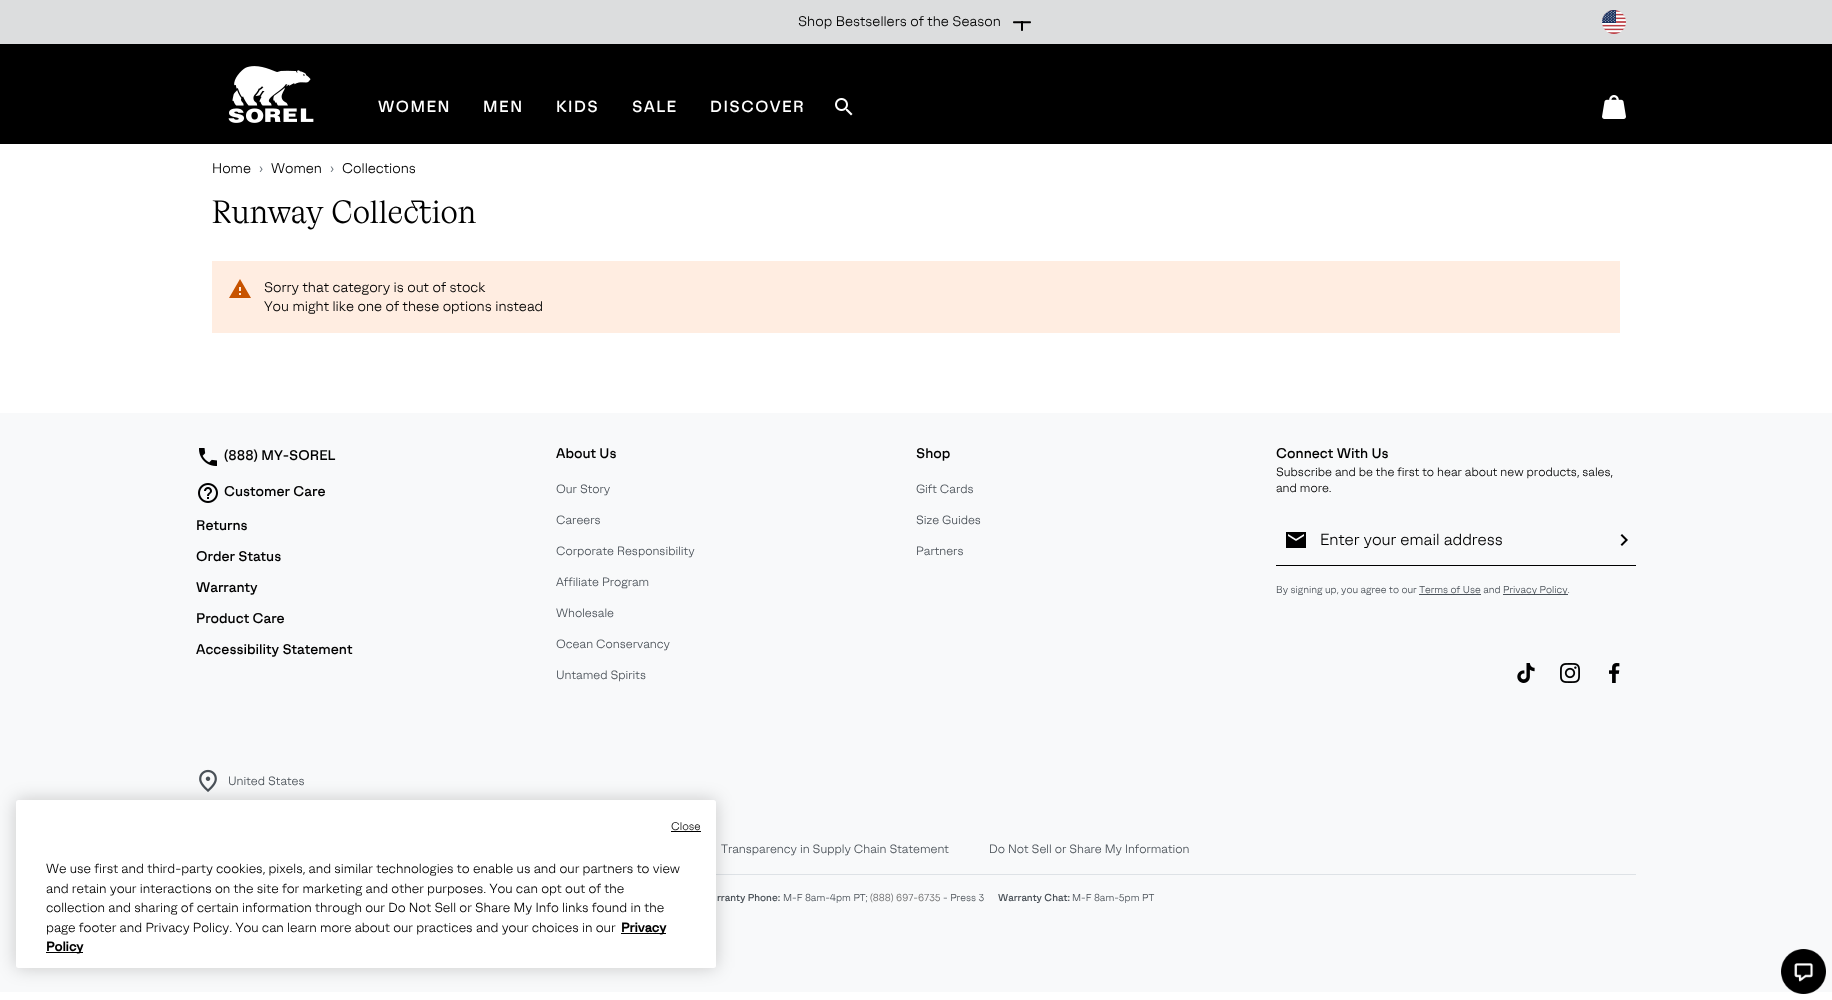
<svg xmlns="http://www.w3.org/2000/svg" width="1832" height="1000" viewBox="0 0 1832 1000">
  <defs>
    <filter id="blur1" x="-50%" y="-200%" width="200%" height="500%"><feGaussianBlur stdDeviation="9"/></filter>
  </defs>
  <rect width="100%" height="100%" fill="#ffffff"/>
  <rect x="0" y="0" width="1832" height="44" fill="#dcddde"/>
  <text x="798" y="26" font-family="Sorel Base" font-size="14" fill="#000000">Shop Bestsellers of the Season</text>
  <image x="1013" y="21" width="18" height="10" href="img1.png"/>
  <image x="1602" y="10" width="24" height="24" href="img2.png"/>
  <rect x="0" y="44" width="1832" height="100" fill="#000000"/>
  <image x="228" y="66" width="86" height="57" href="img3.png"/>
  <text x="378" y="112" font-family="Sorel Base" font-size="16" font-weight="500" letter-spacing="1.5" fill="#ffffff">WOMEN</text>
  <text x="483" y="112" font-family="Sorel Base" font-size="16" font-weight="500" letter-spacing="1.5" fill="#ffffff">MEN</text>
  <text x="556" y="112" font-family="Sorel Base" font-size="16" font-weight="500" letter-spacing="1.5" fill="#ffffff">KIDS</text>
  <text x="632" y="112" font-family="Sorel Base" font-size="16" font-weight="500" letter-spacing="1.5" fill="#ffffff">SALE</text>
  <text x="710" y="112" font-family="Sorel Base" font-size="16" font-weight="500" letter-spacing="1.5" fill="#ffffff">DISCOVER</text>
  <image x="835" y="98" width="18" height="18" href="img4.png"/>
  <image x="1602" y="95" width="24" height="24" href="img5.png"/>
  <text x="212" y="173" font-family="Sorel Base" font-size="14" fill="#000000">Home</text>
  <text x="259" y="173" font-family="Roboto" font-size="14" fill="#6c757d">›</text>
  <text x="271" y="173" font-family="Sorel Base" font-size="14" fill="#000000">Women</text>
  <text x="330" y="173" font-family="Roboto" font-size="14" fill="#6c757d">›</text>
  <text x="342" y="173" font-family="Sorel Base" font-size="14" fill="#000000">Collections</text>
  <text x="212" y="223" font-family="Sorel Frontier" font-size="32" fill="#000000">Runway Collection</text>
  <rect x="212" y="261" width="1408" height="72" fill="#ffede1"/>
  <image x="229" y="279" width="22" height="19" href="img6.png"/>
  <text x="264" y="292" font-family="Sorel Base" font-size="14" fill="#000000">Sorry that category is out of stock</text>
  <text x="264" y="311" font-family="Sorel Base" font-size="14" fill="#000000">You might like one of these options instead</text>
  <rect x="0" y="413" width="1832" height="579" fill="#f8f9fa"/>
  <image x="199" y="448" width="18" height="18" href="img7.png"/>
  <text x="224" y="460" font-family="Sorel Base" font-size="14" font-weight="500" fill="#000000">(888) MY-SOREL</text>
  <image x="198" y="483" width="20" height="20" href="img8.png"/>
  <text x="224" y="496" font-family="Sorel Base" font-size="14" font-weight="500" fill="#000000">Customer Care</text>
  <text x="196" y="530" font-family="Sorel Base" font-size="14" font-weight="500" fill="#000000">Returns</text>
  <text x="196" y="561" font-family="Sorel Base" font-size="14" font-weight="500" fill="#000000">Order Status</text>
  <text x="196" y="592" font-family="Sorel Base" font-size="14" font-weight="500" fill="#000000">Warranty</text>
  <text x="196" y="623" font-family="Sorel Base" font-size="14" font-weight="500" fill="#000000">Product Care</text>
  <text x="196" y="654" font-family="Sorel Base" font-size="14" font-weight="500" fill="#000000">Accessibility Statement</text>
  <text x="556" y="458" font-family="Sorel Base" font-size="14" font-weight="500" fill="#000000">About Us</text>
  <text x="556" y="493" font-family="Sorel Base" font-size="12" fill="#495057">Our Story</text>
  <text x="556" y="524" font-family="Sorel Base" font-size="12" fill="#495057">Careers</text>
  <text x="556" y="555" font-family="Sorel Base" font-size="12" fill="#495057">Corporate Responsibility</text>
  <text x="556" y="586" font-family="Sorel Base" font-size="12" fill="#495057">Affiliate Program</text>
  <text x="556" y="617" font-family="Sorel Base" font-size="12" fill="#495057">Wholesale</text>
  <text x="556" y="648" font-family="Sorel Base" font-size="12" fill="#495057">Ocean Conservancy</text>
  <text x="556" y="679" font-family="Sorel Base" font-size="12" fill="#495057">Untamed Spirits</text>
  <text x="916" y="458" font-family="Sorel Base" font-size="14" font-weight="500" fill="#000000">Shop</text>
  <text x="916" y="493" font-family="Sorel Base" font-size="12" fill="#495057">Gift Cards</text>
  <text x="916" y="524" font-family="Sorel Base" font-size="12" fill="#495057">Size Guides</text>
  <text x="916" y="555" font-family="Sorel Base" font-size="12" fill="#495057">Partners</text>
  <text x="1276" y="458" font-family="Sorel Base" font-size="14" font-weight="500" fill="#000000">Connect With Us</text>
  <text x="1276" y="476" font-family="Sorel Base" font-size="12" fill="#000000">Subscribe and be the first to hear about new products, sales,</text>
  <text x="1276" y="492" font-family="Sorel Base" font-size="12" fill="#000000">and more.</text>
  <image x="1286" y="532" width="20" height="16" href="img9.png"/>
  <text x="1320" y="545" font-family="Sorel Base" font-size="16" fill="#000000">Enter your email address</text>
  <image x="1620" y="534" width="8" height="12" href="img10.png"/>
  <rect x="1276" y="565" width="360" height="1" fill="#000000"/>
  <text x="1276" y="593" font-family="Sorel Base" font-size="10" fill="#495057">By signing up, you agree to our Terms of Use and</text>
  <rect x="1503" y="594" width="65" height="1" fill="#495057"/>
  <text x="1503" y="593" font-family="Sorel Base" font-size="10" fill="#495057">Privacy Policy.</text>
  <rect x="1419" y="594" width="62" height="1" fill="#495057"/>
  <image x="1517" y="663" width="18" height="20" href="img11.png"/>
  <image x="1560" y="663" width="20" height="20" href="img12.png"/>
  <image x="1609" y="663" width="11" height="20" href="img13.png"/>
  <image x="199" y="769" width="18" height="23" href="img14.png"/>
  <text x="228" y="785" font-family="Sorel Base" font-size="12" fill="#495057">United States</text>
  <rect x="716" y="874" width="920" height="1" fill="#dee2e6"/>
  <text x="721" y="853" font-family="Sorel Base" font-size="12" fill="#495057">Transparency in Supply Chain Statement</text>
  <text x="989" y="853" font-family="Sorel Base" font-size="12" fill="#495057">Do Not Sell or Share My Information</text>
  <text x="717" y="901" font-family="Sorel Base" font-size="10" font-weight="500" fill="#495057">rranty Phone:</text>
  <text x="783" y="901" font-family="Sorel Base" font-size="10" fill="#495057">M-F 8am-4pm PT;</text>
  <text x="870" y="901" font-family="Sorel Base" font-size="10" fill="#666666">(888) 697-6735</text>
  <text x="943" y="901" font-family="Sorel Base" font-size="10" fill="#495057">- Press 3</text>
  <text x="998" y="901" font-family="Sorel Base" font-size="10" font-weight="500" fill="#495057">Warranty Chat:</text>
  <text x="1072" y="901" font-family="Sorel Base" font-size="10" fill="#495057">M-F 8am-5pm PT</text>
  <rect x="16" y="800" width="700" height="168" rx="2.5" fill="#000000" fill-opacity="0.2" filter="url(#blur1)"/>
  <rect x="16" y="800" width="700" height="168" rx="2.5" fill="#ffffff"/>
  <text x="671" y="830" font-family="Sorel Base" font-size="11" fill="#000000">Close</text>
  <rect x="671" y="831" width="30" height="1" fill="#000000"/>
  <text x="46" y="873" font-family="Sorel Base" font-size="13" fill="#000000">We use first and third-party cookies, pixels, and similar technologies to enable us and our partners to view</text>
  <text x="46" y="893" font-family="Sorel Base" font-size="13" fill="#000000">and retain your interactions on the site for marketing and other purposes. You can opt out of the</text>
  <text x="46" y="912" font-family="Sorel Base" font-size="13" fill="#000000">collection and sharing of certain information through our Do Not Sell or Share My Info links found in the</text>
  <text x="46" y="932" font-family="Sorel Base" font-size="13" fill="#000000">page footer and Privacy Policy. You can learn more about our practices and your choices in our</text>
  <rect x="621" y="933" width="45" height="1" fill="#000000"/>
  <text x="621" y="932" font-family="Sorel Base" font-size="13" font-weight="bold" fill="#000000">Privacy</text>
  <rect x="46" y="952" width="37" height="1" fill="#000000"/>
  <text x="46" y="951" font-family="Sorel Base" font-size="13" font-weight="bold" fill="#000000">Policy</text>
  <image x="1781" y="949" width="45" height="45" href="img15.png"/>
</svg>
